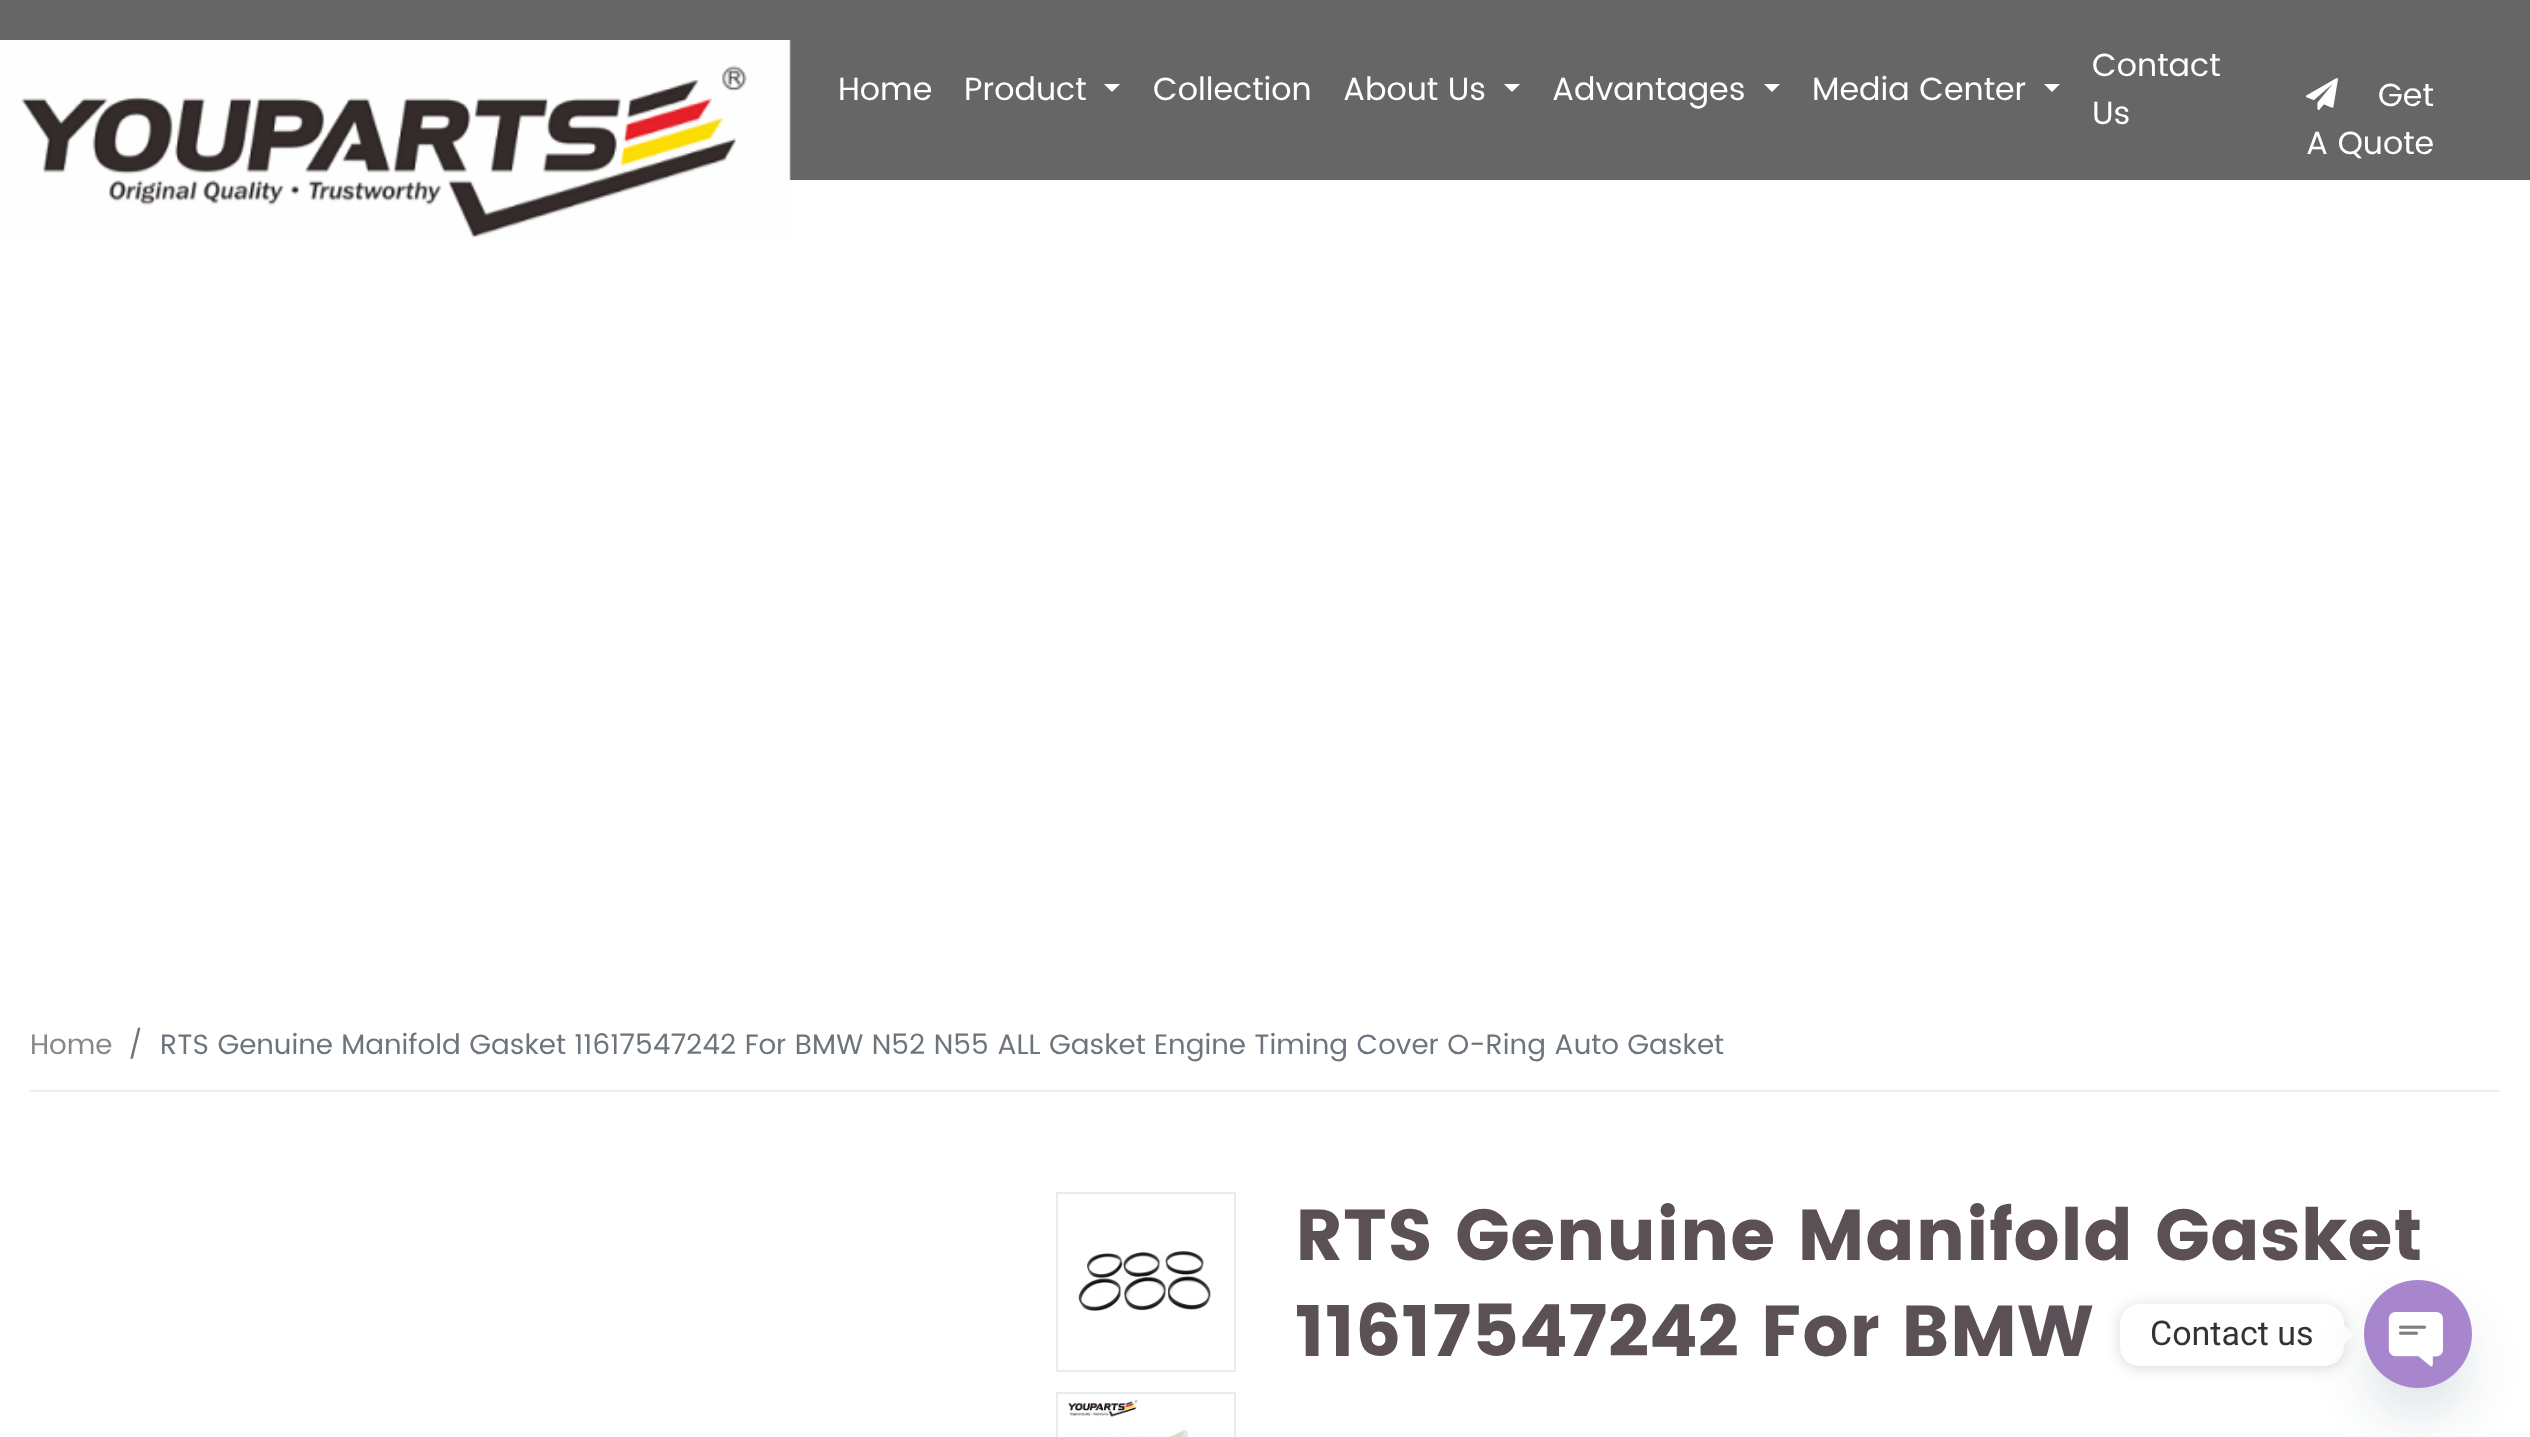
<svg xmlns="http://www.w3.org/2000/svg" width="2530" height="1437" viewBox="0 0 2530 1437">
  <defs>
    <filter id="blur1" x="-50%" y="-200%" width="200%" height="500%"><feGaussianBlur stdDeviation="7.5"/></filter>
    <filter id="blur2" x="-50%" y="-200%" width="200%" height="500%"><feGaussianBlur stdDeviation="24"/></filter>
  </defs>
  <rect width="100%" height="100%" fill="#ffffff"/>
  <rect x="0" y="0" width="2530" height="180" fill="#666666"/>
  <image x="0" y="40" width="791" height="198" href="img1.png"/>
  <text x="838" y="100" font-family="Poppins" font-size="32" fill="#ffffff">Home</text>
  <text x="964" y="100" font-family="Poppins" font-size="32" fill="#ffffff">Product</text>
  <path d="M1104 84H1120L1112 92Z" fill="#ffffff"/>
  <text x="1153" y="100" font-family="Poppins" font-size="32" fill="#ffffff">Collection</text>
  <text x="1343" y="100" font-family="Poppins" font-size="32" fill="#ffffff">About Us</text>
  <path d="M1504 84H1520L1512 92Z" fill="#ffffff"/>
  <text x="1552" y="100" font-family="Poppins" font-size="32" fill="#ffffff">Advantages</text>
  <path d="M1764 84H1780L1772 92Z" fill="#ffffff"/>
  <text x="1812" y="100" font-family="Poppins" font-size="32" fill="#ffffff">Media Center</text>
  <path d="M2044 84H2060L2052 92Z" fill="#ffffff"/>
  <text x="2092" y="76" font-family="Poppins" font-size="32" fill="#ffffff">Contact</text>
  <text x="2092" y="124" font-family="Poppins" font-size="32" fill="#ffffff">Us</text>
  <image x="2306" y="78" width="32" height="32" href="img2.png"/>
  <text x="2378" y="106" font-family="Poppins" font-size="32" fill="#ffffff">Get</text>
  <text x="2306" y="154" font-family="Poppins" font-size="32" fill="#ffffff">A Quote</text>
  <rect x="30" y="1090" width="2470" height="2" fill="#eeeeee"/>
  <text x="30" y="1054" font-family="Poppins" font-size="28" fill="#888888">Home</text>
  <text x="128" y="1054" font-family="Poppins" font-size="28" fill="#6c757d">/</text>
  <text x="160" y="1054" font-family="Poppins" font-size="28" fill="#6c757d">RTS Genuine Manifold Gasket 11617547242 For BMW N52 N55 ALL Gasket Engine Timing Cover O-Ring Auto Gasket</text>
  <rect x="1057" y="1193" width="178" height="178" fill="none" stroke="#ebebeb" stroke-width="2"/>
  <image x="1078" y="1251" width="133" height="60" href="img3.png"/>
  <rect x="1057" y="1393" width="178" height="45" fill="none" stroke="#ebebeb" stroke-width="2"/>
  <image x="1068" y="1399" width="120" height="38" href="img4.png"/>
  <text x="1295" y="1260" font-family="Poppins" font-size="72" font-weight="bold" fill="#5a5055">RTS Genuine Manifold Gasket</text>
  <text x="1295" y="1356" font-family="Poppins" font-size="72" font-weight="bold" fill="#5a5055">11617547242 For BMW</text>
  <rect x="2120" y="1306" width="224" height="62" rx="20" fill="#000000" fill-opacity="0.15" filter="url(#blur1)"/>
  <rect x="2120" y="1304" width="224" height="62" rx="20" fill="#ffffff"/>
  <text x="2150" y="1345" font-family="Roboto" font-size="34" fill="#333333">Contact us</text>
  <path d="M2344 1345V1325L2354 1335Z" fill="#ffffff"/>
  <rect x="2364" y="1312" width="108" height="108" rx="54" fill="#49687e" fill-opacity="0.16" filter="url(#blur2)"/>
  <image x="2364" y="1280" width="108" height="108" href="img5.png"/>
</svg>
